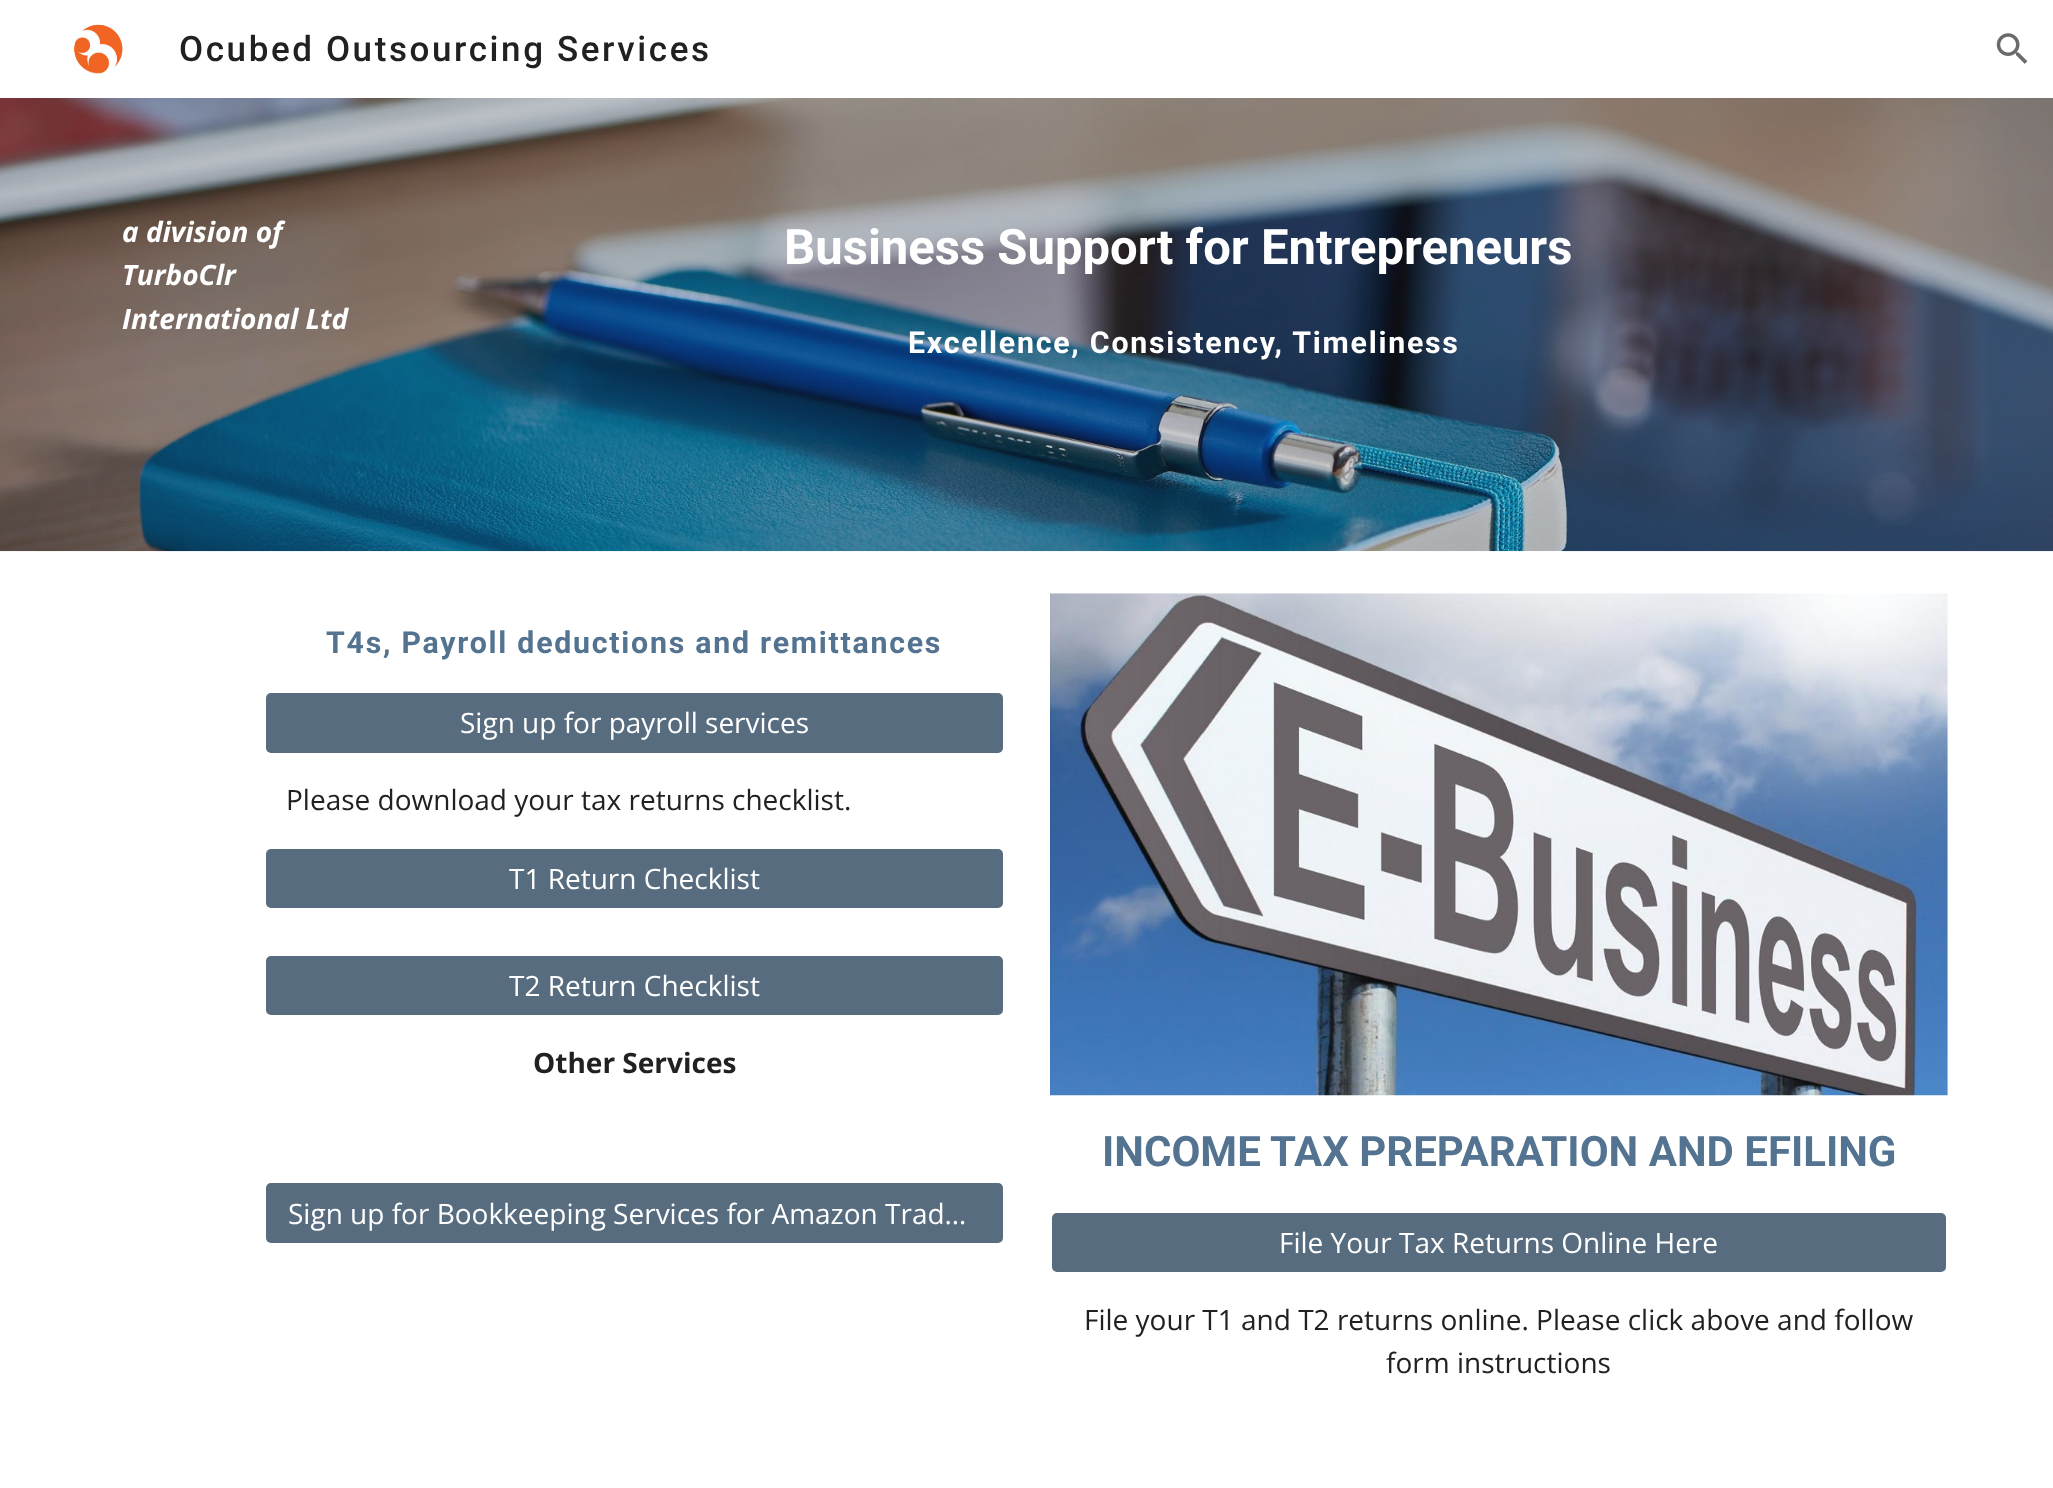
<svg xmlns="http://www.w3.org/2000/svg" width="2053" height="1488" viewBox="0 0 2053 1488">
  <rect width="100%" height="100%" fill="#ffffff"/>
  <image x="74" y="24" width="49" height="50" href="img1.png"/>
  <text x="179" y="61" font-family="Roboto" font-size="35" font-weight="500" letter-spacing="2.6" fill="#212121">Ocubed Outsourcing Services</text>
  <image x="1996" y="33" width="32" height="31" href="img2.png"/>
  <image x="0" y="98" width="2053" height="454" href="img3.png"/>
  <text x="122" y="242" font-family="Open Sans" font-size="28" font-weight="bold" font-style="italic" fill="#ffffff">a division of</text>
  <text x="122" y="285" font-family="Open Sans" font-size="28" font-weight="bold" font-style="italic" fill="#ffffff">TurboClr</text>
  <text x="122" y="329" font-family="Open Sans" font-size="28" font-weight="bold" font-style="italic" fill="#ffffff">International Ltd</text>
  <text x="784" y="264" font-family="Roboto" font-size="49" font-weight="bold" fill="#ffffff">Business Support for Entrepreneurs</text>
  <text x="908" y="353" font-family="Roboto" font-size="30.3" font-weight="bold" letter-spacing="1.75" fill="#ffffff">Excellence, Consistency, Timeliness</text>
  <text x="326" y="653" font-family="Roboto" font-size="30.3" font-weight="bold" letter-spacing="1.75" fill="#537391">T4s, Payroll deductions and remittances</text>
  <rect x="266" y="693" width="737" height="60" rx="5" fill="#576c7e"/>
  <text x="460" y="733" font-family="Open Sans" font-size="28" fill="#ffffff">Sign up for payroll services</text>
  <text x="286" y="810" font-family="Open Sans" font-size="28" fill="#212121">Please download your tax returns checklist.</text>
  <rect x="266" y="849" width="737" height="59" rx="5" fill="#576c7e"/>
  <text x="509" y="889" font-family="Open Sans" font-size="28" fill="#ffffff">T1 Return Checklist</text>
  <rect x="266" y="956" width="737" height="59" rx="5" fill="#576c7e"/>
  <text x="509" y="996" font-family="Open Sans" font-size="28" fill="#ffffff">T2 Return Checklist</text>
  <text x="533" y="1073" font-family="Open Sans" font-size="28" font-weight="bold" fill="#212121">Other Services</text>
  <rect x="266" y="1183" width="737" height="60" rx="5" fill="#576c7e"/>
  <text x="288" y="1224" font-family="Open Sans" font-size="28" fill="#ffffff">Sign up for Bookkeeping Services for Amazon Trad…</text>
  <image x="1050" y="593" width="898" height="503" href="img4.png"/>
  <text x="1102" y="1166" font-family="Roboto" font-size="42" font-weight="bold" fill="#537391">INCOME TAX PREPARATION AND EFILING</text>
  <rect x="1052" y="1213" width="894" height="59" rx="5" fill="#576c7e"/>
  <text x="1279" y="1253" font-family="Open Sans" font-size="28" fill="#ffffff">File Your Tax Returns Online Here</text>
  <text x="1084" y="1330" font-family="Open Sans" font-size="28" fill="#212121">File your T1 and T2 returns online. Please click above and follow</text>
  <text x="1386" y="1373" font-family="Open Sans" font-size="28" fill="#212121">form instructions</text>
</svg>
